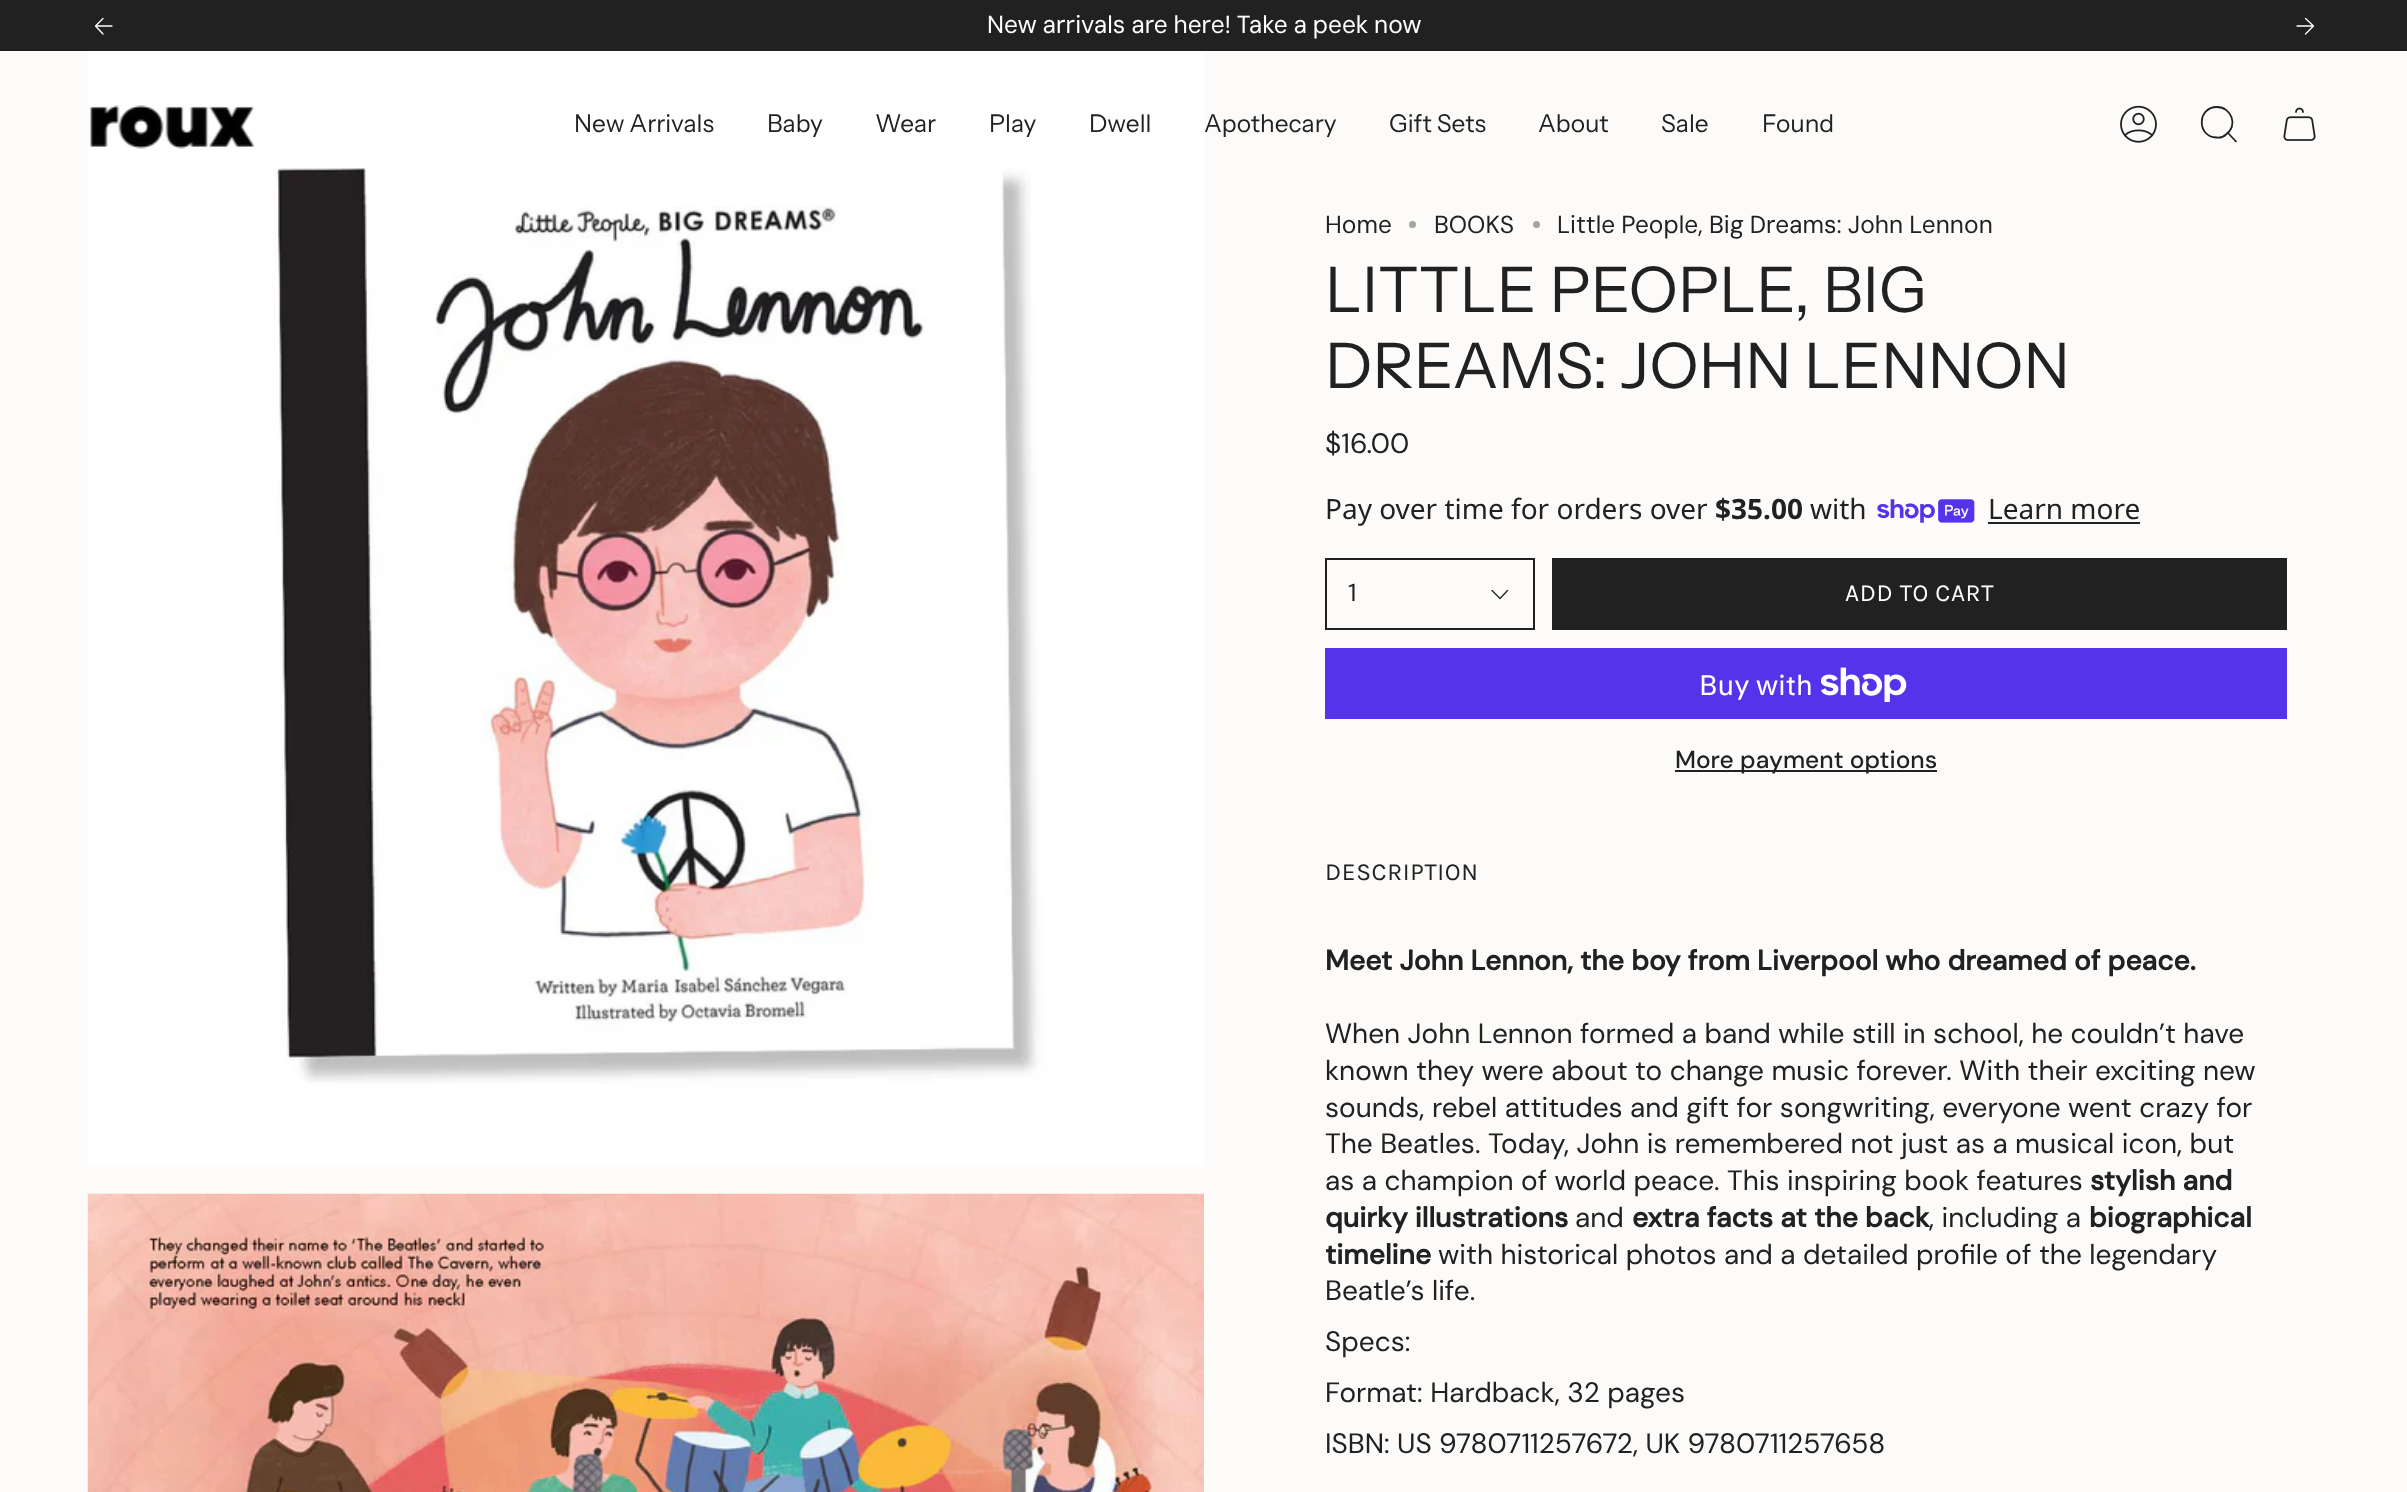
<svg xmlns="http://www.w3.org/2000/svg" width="2407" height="1492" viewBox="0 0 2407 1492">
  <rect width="100%" height="100%" fill="#fcfbf9"/>
  <rect x="0" y="0" width="2407" height="51" fill="#212121"/>
  <path d="M112 26H95.5M95.5 26L103 18.5M95.5 26L103 34" fill="none" stroke="#ffffff" stroke-width="1.3" stroke-linecap="round" stroke-linejoin="round"/>
  <text x="987" y="33" word-spacing="-0.75" font-family="DM Sans" font-size="24.5" fill="#ffffff">New arrivals are here! Take a peek now</text>
  <path d="M2297 26H2313.5M2313.5 26L2305.5 18.5M2313.5 26L2305.5 34" fill="none" stroke="#ffffff" stroke-width="1.3" stroke-linecap="round" stroke-linejoin="round"/>
  <image x="88" y="51" width="1116" height="1116" href="img4.png"/>
  <image x="89" y="105" width="166" height="44" href="img1.png"/>
  <text x="574" y="132" font-family="Instrument Sans" font-size="24.5" fill="#212121">New Arrivals</text>
  <text x="767" y="132" font-family="Instrument Sans" font-size="24.5" fill="#212121">Baby</text>
  <text x="875" y="132" font-family="Instrument Sans" font-size="24.5" fill="#212121">Wear</text>
  <text x="989" y="132" font-family="Instrument Sans" font-size="24.5" fill="#212121">Play</text>
  <text x="1089" y="132" font-family="Instrument Sans" font-size="24.5" fill="#212121">Dwell</text>
  <text x="1204" y="132" font-family="Instrument Sans" font-size="24.5" fill="#212121">Apothecary</text>
  <text x="1389" y="132" font-family="Instrument Sans" font-size="24.5" fill="#212121">Gift Sets</text>
  <text x="1538" y="132" font-family="Instrument Sans" font-size="24.5" fill="#212121">About</text>
  <text x="1661" y="132" font-family="Instrument Sans" font-size="24.5" fill="#212121">Sale</text>
  <text x="1762" y="132" font-family="Instrument Sans" font-size="24.5" fill="#212121">Found</text>
  <image x="2120" y="105" width="37" height="38" href="img2.png"/>
  <path d="M2217 107C2231.5 107 2238.5 126 2226 134.5C2223.5 137 2220 138 2216.5 137.5C2196.5 137 2197 107 2217 107ZM2228 133L2236.5 142" fill="none" stroke="#212121" stroke-width="1.8"/>
  <image x="2283" y="107" width="33" height="34" href="img3.png"/>
  <image x="87" y="1193" width="1117" height="299" href="img5.png"/>
  <text x="1325" y="233" font-family="DM Sans" font-size="24.5" fill="#212121">Home</text>
  <circle cx="1412.5" cy="224.5" r="3.5" fill="#a4a4a3"/>
  <text x="1434" y="233" font-family="DM Sans" font-size="24.5" fill="#212121">BOOKS</text>
  <circle cx="1536.5" cy="224.5" r="3.5" fill="#a4a4a3"/>
  <text x="1557" y="233" word-spacing="-0.5" font-family="DM Sans" font-size="24.5" fill="#212121">Little People, Big Dreams: John Lennon</text>
  <text x="1325" y="312" font-family="Instrument Sans" font-size="63" fill="#212121">LITTLE PEOPLE, BIG</text>
  <text x="1325" y="388" font-family="Instrument Sans" font-size="63" fill="#212121">DREAMS: JOHN LENNON</text>
  <text x="1325" y="453" font-family="'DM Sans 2'" font-size="28" fill="#212121">$16.00</text>
  <text x="1325" y="519" font-family="Noto Sans" font-size="28" fill="#212121">Pay over time for orders over</text>
  <text x="1715" y="519" font-family="Noto Sans" font-size="28" font-weight="bold" fill="#212121">$35.00</text>
  <text x="1810" y="519" font-family="Noto Sans" font-size="28" fill="#212121">with</text>
  <image x="1877" y="499" width="98" height="24" href="img6.png"/>
  <text x="1988" y="519" font-family="Noto Sans" font-size="28" fill="#212121">Learn more</text>
  <rect x="1988" y="522" width="152" height="2" fill="#212121"/>
  <rect x="1326" y="559" width="208" height="70" fill="none" stroke="#212121" stroke-width="2"/>
  <text x="1348" y="601" font-family="DM Sans" font-size="24.5" fill="#212121">1</text>
  <path d="M1492 590.5L1500 598.5L1507.5 590.5" fill="none" stroke="#212121" stroke-width="1.3" stroke-linecap="round" stroke-linejoin="round"/>
  <rect x="1552" y="558" width="735" height="72" fill="#212121"/>
  <text x="1845" y="601" font-family="Karla" font-size="24.5" letter-spacing="0.6" fill="#ffffff">ADD TO CART</text>
  <rect x="1325" y="648" width="962" height="71" fill="#5433eb"/>
  <text x="1699" y="695" font-family="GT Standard" font-size="28" fill="#ffffff">Buy with</text>
  <image x="1821" y="667" width="86" height="35" href="img7.png"/>
  <rect x="1675" y="770" width="262" height="2" fill="#212121"/>
  <text x="1675" y="768" font-family="DM Sans" font-size="24.5" font-weight="500" fill="#212121">More payment options</text>
  <text x="1325" y="880" font-family="Karla" font-size="24.5" letter-spacing="0.6" fill="#212121">DESCRIPTION</text>
  <text x="1325" y="970" font-family="DM Sans" font-size="28" font-weight="bold" fill="#212121">Meet John Lennon, the boy from Liverpool who dreamed of peace.</text>
  <text x="1325" y="1043" font-family="'DM Sans 2'" font-size="28" fill="#212121">When John Lennon formed a band while still in school, he couldn’t have</text>
  <text x="1325" y="1080" font-family="'DM Sans 2'" font-size="28" fill="#212121">known they were about to change music forever. With their exciting new</text>
  <text x="1325" y="1117" font-family="'DM Sans 2'" font-size="28" fill="#212121">sounds, rebel attitudes and gift for songwriting, everyone went crazy for</text>
  <text x="1325" y="1153" font-family="'DM Sans 2'" font-size="28" fill="#212121">The Beatles. Today, John is remembered not just as a musical icon, but</text>
  <text x="1325" y="1190" font-family="'DM Sans 2'" font-size="28" fill="#212121">as a champion of world peace. This inspiring book features</text>
  <text x="2090" y="1190" font-family="DM Sans" font-size="28" font-weight="bold" fill="#212121">stylish and</text>
  <text x="1325" y="1227" font-family="DM Sans" font-size="28" font-weight="bold" fill="#212121">quirky illustrations</text>
  <text x="1575" y="1227" font-family="'DM Sans 2'" font-size="28" fill="#212121">and</text>
  <text x="1632" y="1227" font-family="DM Sans" font-size="28" font-weight="bold" fill="#212121">extra facts at the back</text>
  <text x="1929" y="1227" font-family="'DM Sans 2'" font-size="28" fill="#212121">, including a</text>
  <text x="2089" y="1227" font-family="DM Sans" font-size="28" font-weight="bold" fill="#212121">biographical</text>
  <text x="1325" y="1264" font-family="DM Sans" font-size="28" font-weight="bold" fill="#212121">timeline</text>
  <text x="1438" y="1264" font-family="'DM Sans 2'" font-size="28" fill="#212121">with historical photos and a detailed profile of the legendary</text>
  <text x="1325" y="1300" font-family="'DM Sans 2'" font-size="28" fill="#212121">Beatle’s life.</text>
  <text x="1325" y="1351" font-family="'DM Sans 2'" font-size="28" fill="#212121">Specs:</text>
  <text x="1325" y="1402" font-family="'DM Sans 2'" font-size="28" fill="#212121">Format: Hardback, 32 pages</text>
  <text x="1325" y="1453" font-family="'DM Sans 2'" font-size="28" fill="#212121">ISBN: US 9780711257672, UK 9780711257658</text>
</svg>
